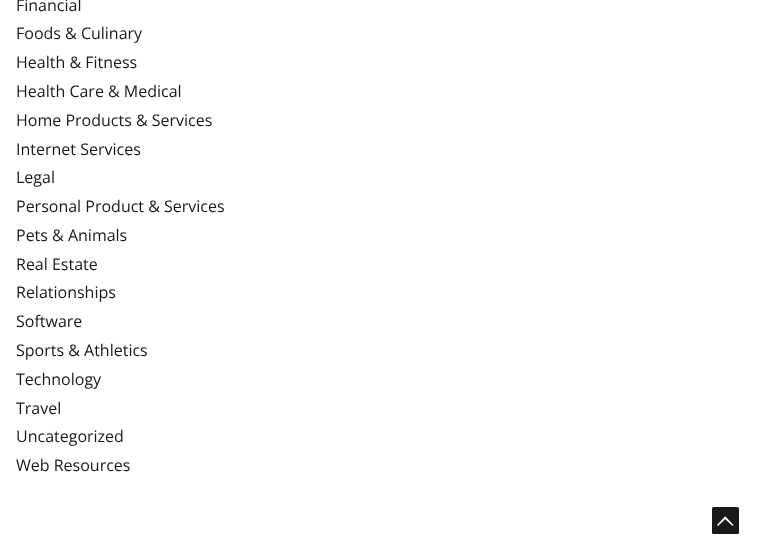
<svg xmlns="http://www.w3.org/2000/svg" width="766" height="554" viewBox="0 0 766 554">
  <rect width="100%" height="100%" fill="#ffffff"/>
  <text x="16" y="11" font-family="Open Sans" font-size="16" fill="#191919">Financial</text>
  <text x="16" y="39" font-family="Open Sans" font-size="16" fill="#191919">Foods &amp; Culinary</text>
  <text x="16" y="68" font-family="Open Sans" font-size="16" fill="#191919">Health &amp; Fitness</text>
  <text x="16" y="97" font-family="Open Sans" font-size="16" fill="#191919">Health Care &amp; Medical</text>
  <text x="16" y="126" font-family="Open Sans" font-size="16" fill="#191919">Home Products &amp; Services</text>
  <text x="16" y="155" font-family="Open Sans" font-size="16" fill="#191919">Internet Services</text>
  <text x="16" y="183" font-family="Open Sans" font-size="16" fill="#191919">Legal</text>
  <text x="16" y="212" font-family="Open Sans" font-size="16" fill="#191919">Personal Product &amp; Services</text>
  <text x="16" y="241" font-family="Open Sans" font-size="16" fill="#191919">Pets &amp; Animals</text>
  <text x="16" y="270" font-family="Open Sans" font-size="16" fill="#191919">Real Estate</text>
  <text x="16" y="298" font-family="Open Sans" font-size="16" fill="#191919">Relationships</text>
  <text x="16" y="327" font-family="Open Sans" font-size="16" fill="#191919">Software</text>
  <text x="16" y="356" font-family="Open Sans" font-size="16" fill="#191919">Sports &amp; Athletics</text>
  <text x="16" y="385" font-family="Open Sans" font-size="16" fill="#191919">Technology</text>
  <text x="16" y="414" font-family="Open Sans" font-size="16" fill="#191919">Travel</text>
  <text x="16" y="442" font-family="Open Sans" font-size="16" fill="#191919">Uncategorized</text>
  <text x="16" y="471" font-family="Open Sans" font-size="16" fill="#191919">Web Resources</text>
  <rect x="712" y="507" width="27" height="27" rx="1.5" fill="#191919"/>
  <path d="M725.5 516.5L733.5 525L732.5 526L724 518Z" fill="#ffffff"/>
  <path d="M717 525L725 516.5L726.5 518L718 526Z" fill="#ffffff"/>
</svg>
